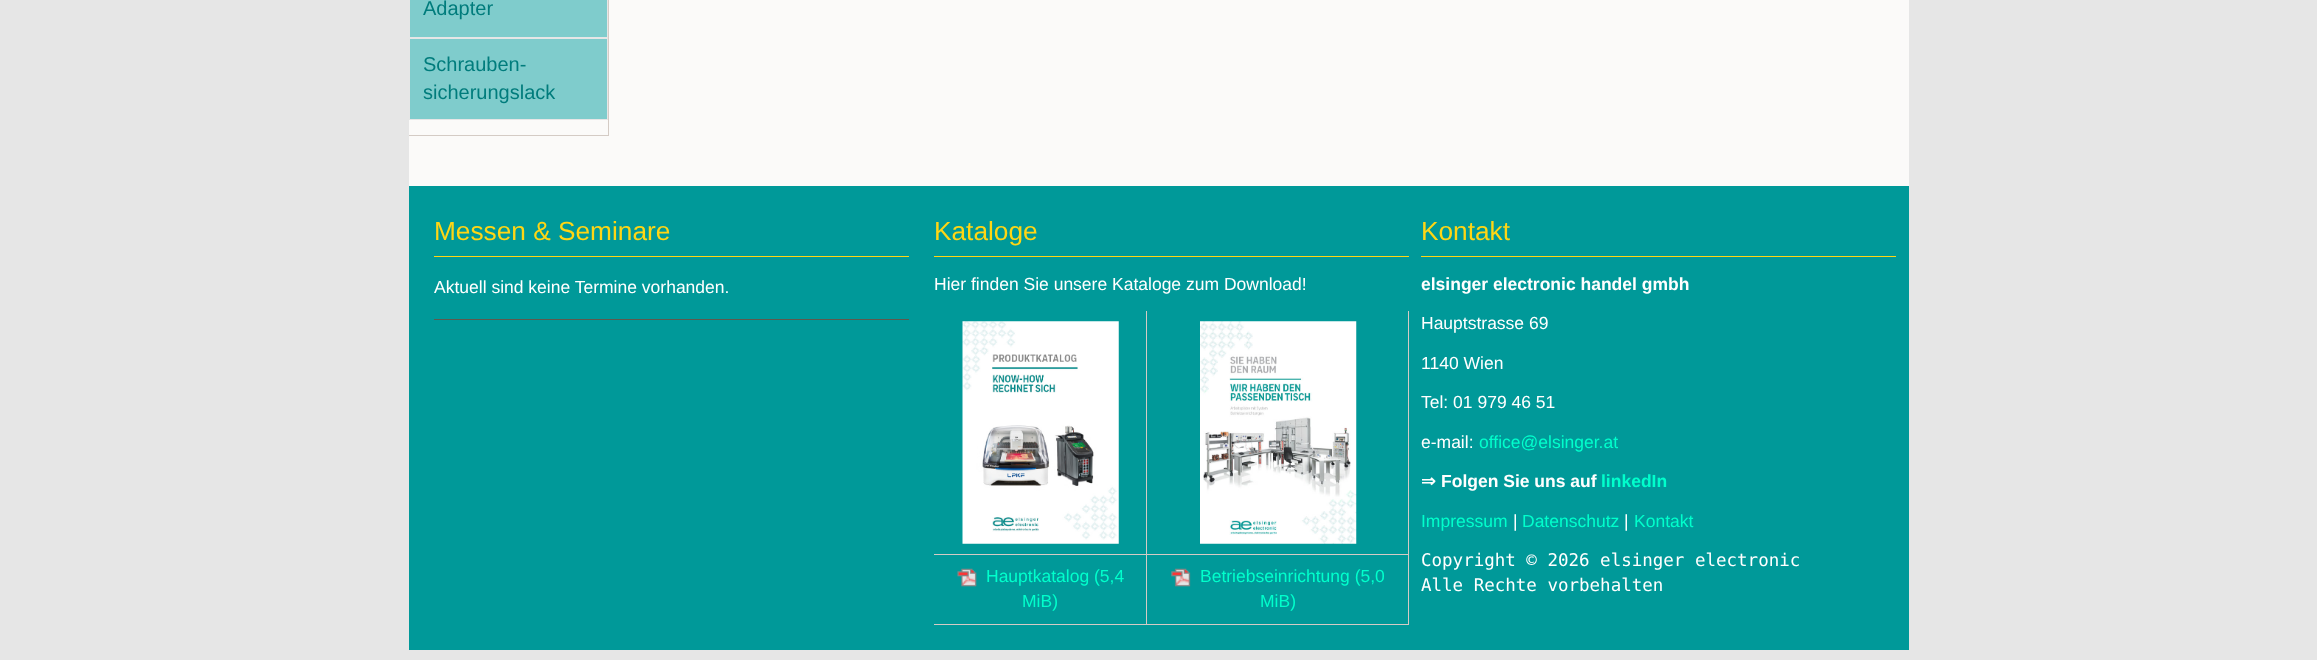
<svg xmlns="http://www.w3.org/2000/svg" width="2317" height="660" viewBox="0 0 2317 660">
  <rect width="100%" height="100%" fill="#e6e6e6"/>
  <rect x="409" y="0" width="1500" height="186" fill="#fbfaf9"/>
  <rect x="608" y="0" width="1" height="136" fill="#d4cbc5"/>
  <rect x="409" y="135" width="200" height="1" fill="#d4cbc5"/>
  <rect x="409.5" y="-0.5" width="198" height="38" fill="#7fcccc" stroke="#e6e6e6"/>
  <text x="423" y="15" font-family="Liberation Sans" font-size="20" fill="#007c7c">Adapter</text>
  <rect x="409.5" y="38.5" width="198" height="81" fill="#7fcccc" stroke="#e6e6e6"/>
  <text x="423" y="71" font-family="Liberation Sans" font-size="20" fill="#007c7c">Schrauben-</text>
  <text x="423" y="99" font-family="Liberation Sans" font-size="20" fill="#007c7c">sicherungslack</text>
  <rect x="409" y="186" width="1500" height="464" fill="#009999"/>
  <rect x="434" y="256" width="475" height="1" fill="#ffd614"/>
  <text x="434" y="240" font-family="Liberation Sans" font-size="26.25" fill="#ffd614">Messen &amp; Seminare</text>
  <rect x="434" y="319" width="475" height="1" fill="#60584d"/>
  <text x="434" y="293" font-family="Liberation Sans" font-size="17.5" fill="#ffffff">Aktuell sind keine Termine vorhanden.</text>
  <rect x="934" y="256" width="475" height="1" fill="#ffd614"/>
  <text x="934" y="240" font-family="Liberation Sans" font-size="26.25" fill="#ffd614">Kataloge</text>
  <text x="934" y="290" font-family="Liberation Sans" font-size="17.5" fill="#ffffff">Hier finden Sie unsere Kataloge zum Download!</text>
  <rect x="1408" y="311" width="1" height="314" fill="#d4cbc5"/>
  <rect x="1146" y="624" width="263" height="1" fill="#d4cbc5"/>
  <rect x="1146" y="554" width="1" height="71" fill="#d4cbc5"/>
  <rect x="1146" y="554" width="263" height="1" fill="#d4cbc5"/>
  <rect x="1146" y="311" width="1" height="244" fill="#d4cbc5"/>
  <rect x="934" y="554" width="214" height="1" fill="#d4cbc5"/>
  <image x="962" y="321" width="157" height="223" href="img1.png"/>
  <image x="1200" y="321" width="157" height="223" href="img2.png"/>
  <rect x="934" y="624" width="214" height="1" fill="#d4cbc5"/>
  <image x="957" y="568" width="20" height="19" href="img3.png"/>
  <text x="986" y="582" font-family="Liberation Sans" font-size="17.5" fill="#00ffcc">Hauptkatalog (5,4</text>
  <text x="1022" y="607" font-family="Liberation Sans" font-size="17.5" fill="#00ffcc">MiB)</text>
  <image x="1171" y="568" width="20" height="19" href="img4.png"/>
  <text x="1200" y="582" font-family="Liberation Sans" font-size="17.5" fill="#00ffcc">Betriebseinrichtung (5,0</text>
  <text x="1260" y="607" font-family="Liberation Sans" font-size="17.5" fill="#00ffcc">MiB)</text>
  <rect x="1421" y="256" width="475" height="1" fill="#ffd614"/>
  <text x="1421" y="240" font-family="Liberation Sans" font-size="26.25" fill="#ffd614">Kontakt</text>
  <text x="1421" y="290" font-family="Liberation Sans" font-size="17.5" font-weight="bold" fill="#ffffff">elsinger electronic handel gmbh</text>
  <text x="1421" y="329" font-family="Liberation Sans" font-size="17.5" fill="#ffffff">Hauptstrasse 69</text>
  <text x="1421" y="369" font-family="Liberation Sans" font-size="17.5" fill="#ffffff">1140 Wien</text>
  <text x="1421" y="408" font-family="Liberation Sans" font-size="17.5" fill="#ffffff">Tel: 01 979 46 51</text>
  <text x="1421" y="448" font-family="Liberation Sans" font-size="17.5" fill="#ffffff">e-mail:</text>
  <text x="1479" y="448" font-family="Liberation Sans" font-size="17.5" fill="#00ffcc">office@elsinger.at</text>
  <text x="1421" y="487" font-family="DejaVu Sans" font-size="17.5" font-weight="bold" fill="#ffffff">⇒</text>
  <text x="1441" y="487" font-family="Liberation Sans" font-size="17.5" font-weight="bold" fill="#ffffff">Folgen Sie uns auf</text>
  <text x="1601" y="487" font-family="Liberation Sans" font-size="17.5" font-weight="bold" fill="#00ffcc">linkedIn</text>
  <text x="1421" y="527" font-family="Liberation Sans" font-size="17.5" fill="#00ffcc">Impressum</text>
  <text x="1513" y="527" font-family="Liberation Sans" font-size="17.5" fill="#ffffff">|</text>
  <text x="1522" y="527" font-family="Liberation Sans" font-size="17.5" fill="#00ffcc">Datenschutz</text>
  <text x="1624" y="527" font-family="Liberation Sans" font-size="17.5" fill="#ffffff">|</text>
  <text x="1634" y="527" font-family="Liberation Sans" font-size="17.5" fill="#00ffcc">Kontakt</text>
  <text x="1421" y="566" font-family="DejaVu Sans Mono" font-size="17.5" fill="#ffffff">Copyright © 2026 elsinger electronic</text>
  <text x="1421" y="591" font-family="DejaVu Sans Mono" font-size="17.5" fill="#ffffff">Alle Rechte vorbehalten</text>
</svg>
